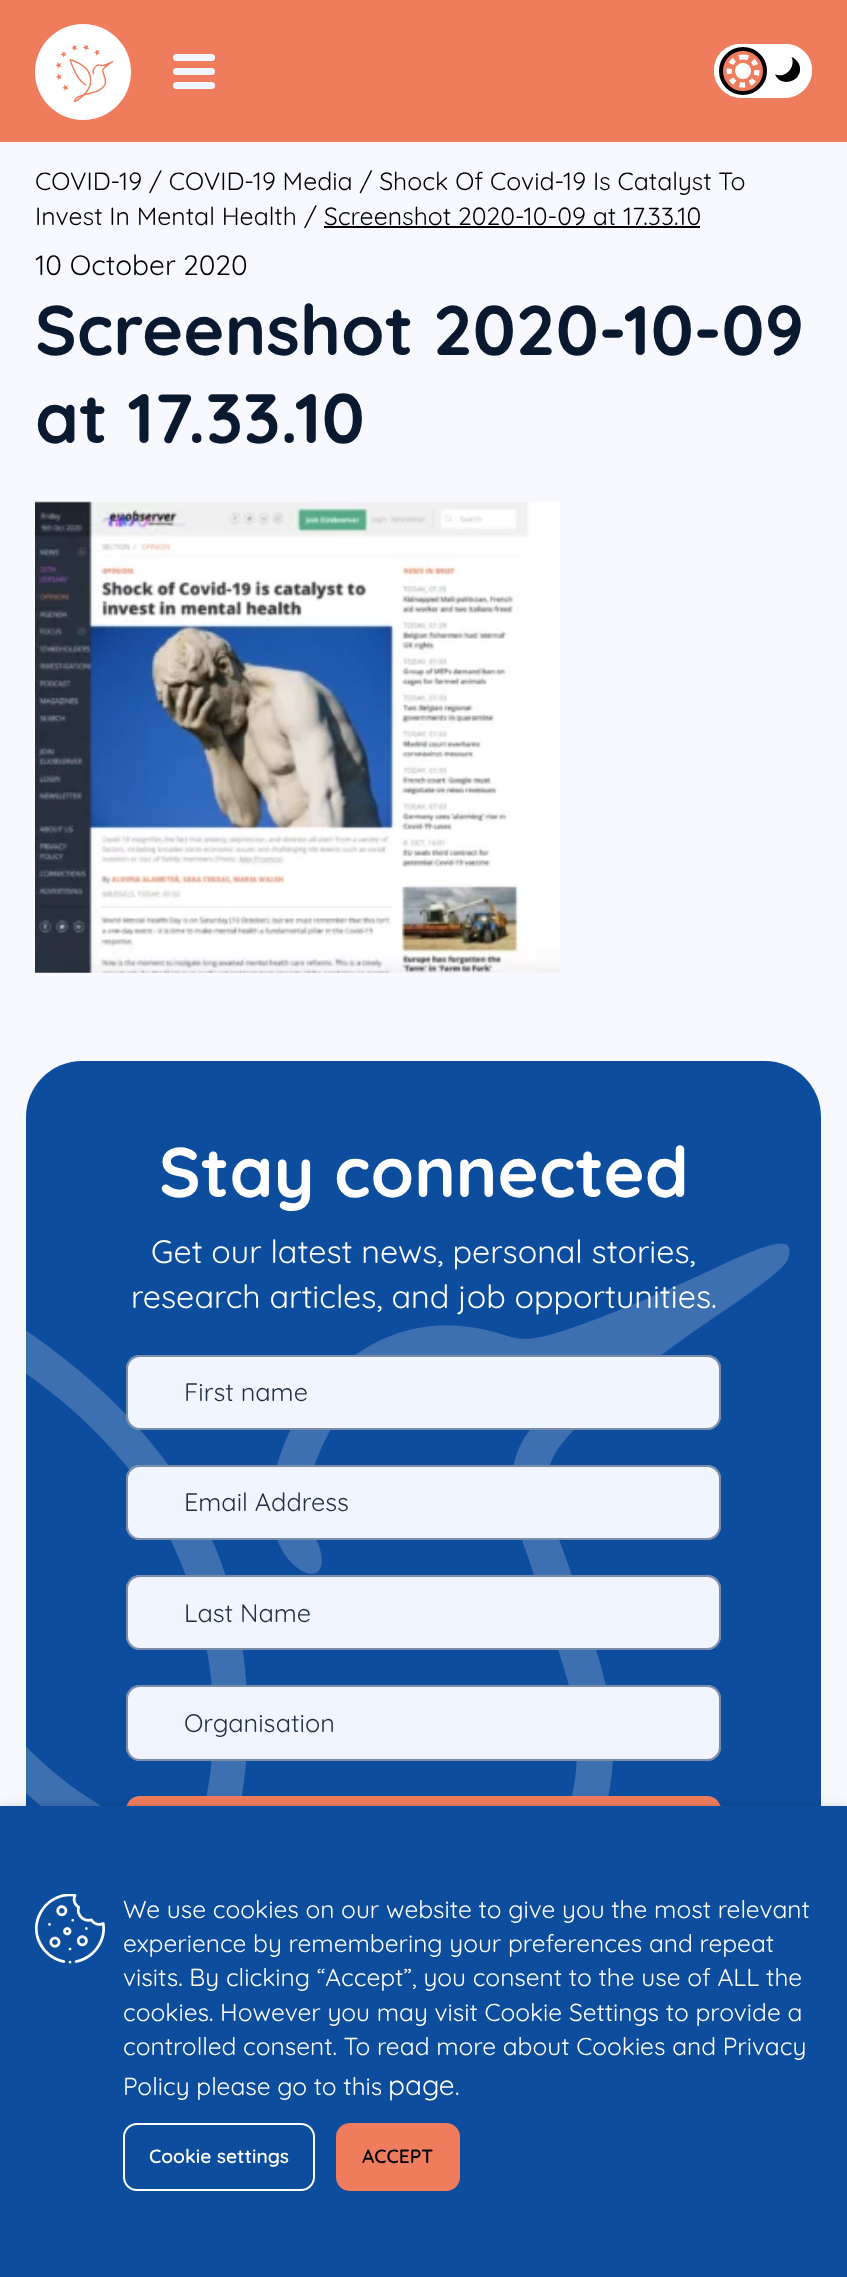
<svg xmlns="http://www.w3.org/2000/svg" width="847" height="2277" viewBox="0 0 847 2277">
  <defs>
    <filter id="blur1" x="-50%" y="-200%" width="200%" height="500%"><feGaussianBlur stdDeviation="9"/></filter>
  </defs>
  <rect width="100%" height="100%" fill="#f7f9ff"/>
  <rect x="0" y="0" width="847" height="142" fill="#ef7c5d"/>
  <image x="35" y="24" width="96" height="96" href="img1.png"/>
  <rect x="173" y="68" width="42" height="7" rx="3.5" fill="#f0f5ff"/>
  <rect x="173" y="54" width="42" height="7" rx="3.5" fill="#f0f5ff"/>
  <rect x="173" y="82" width="42" height="7" rx="3.5" fill="#f0f5ff"/>
  <rect x="714" y="44" width="98" height="54" rx="27" fill="#ffffff"/>
  <path d="M775 74.5C782.5 90 806.5 79 798.5 63C797 60.5 794.5 58 791.5 57C796 67 786 78.5 775 74.5Z" fill="#000000"/>
  <rect x="716.5" y="46.5" width="93" height="47" rx="23.5" fill="none" stroke="#ffffff" stroke-width="5"/>
  <circle cx="743" cy="71" r="22" fill="#ef7c5d" stroke="#000000" stroke-width="4"/>
  <circle cx="743" cy="71" r="8" fill="#ffffff"/>
  <path d="M743 57C761.5 57 761.5 85 743 85C724.5 85 724.5 57 743 57Z" fill="none" stroke="#ffffff" stroke-width="5.2" stroke-dasharray="5.25 5.25"/>
  <text x="35" y="190" font-family="Quicksand" font-size="24.85" fill="#000000">COVID-19 / COVID-19 Media / Shock Of Covid-19 Is Catalyst To</text>
  <text x="35" y="225" font-family="Quicksand" font-size="24.85" fill="#000000">Invest In Mental Health</text>
  <text x="304" y="225" font-family="Quicksand" font-size="24.85" fill="#000000">/ Screenshot 2020-10-09 at 17.33.10</text>
  <rect x="324" y="226" width="376" height="2" fill="#000000"/>
  <text x="35" y="275" font-family="Quicksand" font-size="28" fill="#000000">10 October 2020</text>
  <text x="35" y="355" font-family="Quicksand" font-size="70" font-weight="bold" fill="#0a192f">Screenshot 2020-10-09</text>
  <text x="35" y="443" font-family="Quicksand" font-size="70" font-weight="bold" fill="#0a192f">at 17.33.10</text>
  <image x="35" y="501" width="525" height="472" href="img2.png"/>
  <rect x="26" y="1061" width="795" height="892" rx="56" fill="#0d4d9e"/>
  <text x="159" y="1197" font-family="Quicksand" font-size="70" font-weight="bold" fill="#ffffff">Stay connected</text>
  <image x="26" y="1243" width="764" height="563" href="img3.png"/>
  <text x="151" y="1263" font-family="Quicksand" font-size="32.25" fill="#ffffff">Get our latest news, personal stories,</text>
  <text x="131" y="1308" font-family="Quicksand" font-size="32.25" fill="#ffffff">research articles, and job opportunities.</text>
  <rect x="126" y="1355" width="595" height="75" rx="14" fill="#f0f5ff"/>
  <rect x="127" y="1356" width="593" height="73" rx="13" fill="none" stroke="#08274f" stroke-opacity="0.5" stroke-width="2"/>
  <text x="184" y="1401" font-family="Quicksand" font-size="25.25" fill="#212f44">First name</text>
  <rect x="126" y="1465" width="595" height="75" rx="14" fill="#f0f5ff"/>
  <rect x="127" y="1466" width="593" height="73" rx="13" fill="none" stroke="#08274f" stroke-opacity="0.5" stroke-width="2"/>
  <text x="184" y="1511" font-family="Quicksand" font-size="25.25" fill="#212f44">Email Address</text>
  <rect x="126" y="1575" width="595" height="75" rx="14" fill="#f0f5ff"/>
  <rect x="127" y="1576" width="593" height="73" rx="13" fill="none" stroke="#08274f" stroke-opacity="0.5" stroke-width="2"/>
  <text x="184" y="1622" font-family="Quicksand" font-size="25.25" fill="#212f44">Last Name</text>
  <rect x="126" y="1685" width="595" height="76" rx="14" fill="#f0f5ff"/>
  <rect x="127" y="1686" width="593" height="74" rx="13" fill="none" stroke="#08274f" stroke-opacity="0.5" stroke-width="2"/>
  <text x="184" y="1732" font-family="Quicksand" font-size="25.25" fill="#212f44">Organisation</text>
  <rect x="126" y="1796" width="595" height="75" rx="14" fill="#ef7c5d"/>
  <rect x="0" y="1815" width="847" height="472" fill="#000000" fill-opacity="0.5" filter="url(#blur1)"/>
  <rect x="0" y="1806" width="847" height="471" fill="#0d4d9e"/>
  <image x="35" y="1894" width="70" height="70" href="img4.png"/>
  <text x="123" y="1918" font-family="Quicksand" font-size="24.5" fill="#ffffff">We use cookies on our website to give you the most relevant</text>
  <text x="123" y="1952" font-family="Quicksand" font-size="24.5" fill="#ffffff">experience by remembering your preferences and repeat</text>
  <text x="123" y="1986" font-family="Quicksand" font-size="24.5" fill="#ffffff">visits. By clicking “Accept”, you consent to the use of ALL the</text>
  <text x="123" y="2021" font-family="Quicksand" font-size="24.5" fill="#ffffff">cookies. However you may visit Cookie Settings to provide a</text>
  <text x="123" y="2055" font-family="Quicksand" font-size="24.5" fill="#ffffff">controlled consent. To read more about Cookies and Privacy</text>
  <text x="123" y="2095" font-family="Quicksand" font-size="24.5" fill="#ffffff">Policy please go to this</text>
  <text x="388" y="2095" font-family="Quicksand" font-size="28" fill="#ffffff">page</text>
  <text x="455" y="2095" font-family="Quicksand" font-size="24.5" fill="#ffffff">.</text>
  <rect x="124" y="2124" width="190" height="66" rx="13" fill="none" stroke="#ffffff" stroke-width="2"/>
  <text x="149" y="2163" font-family="Quicksand" font-size="19.25" font-weight="600" fill="#ffffff">Cookie settings</text>
  <rect x="337" y="2124" width="122" height="66" rx="13" fill="#ef7c5d" stroke="#ef7c5d" stroke-width="2"/>
  <text x="362" y="2163" font-family="Quicksand" font-size="19.25" font-weight="600" fill="#000000">ACCEPT</text>
</svg>
